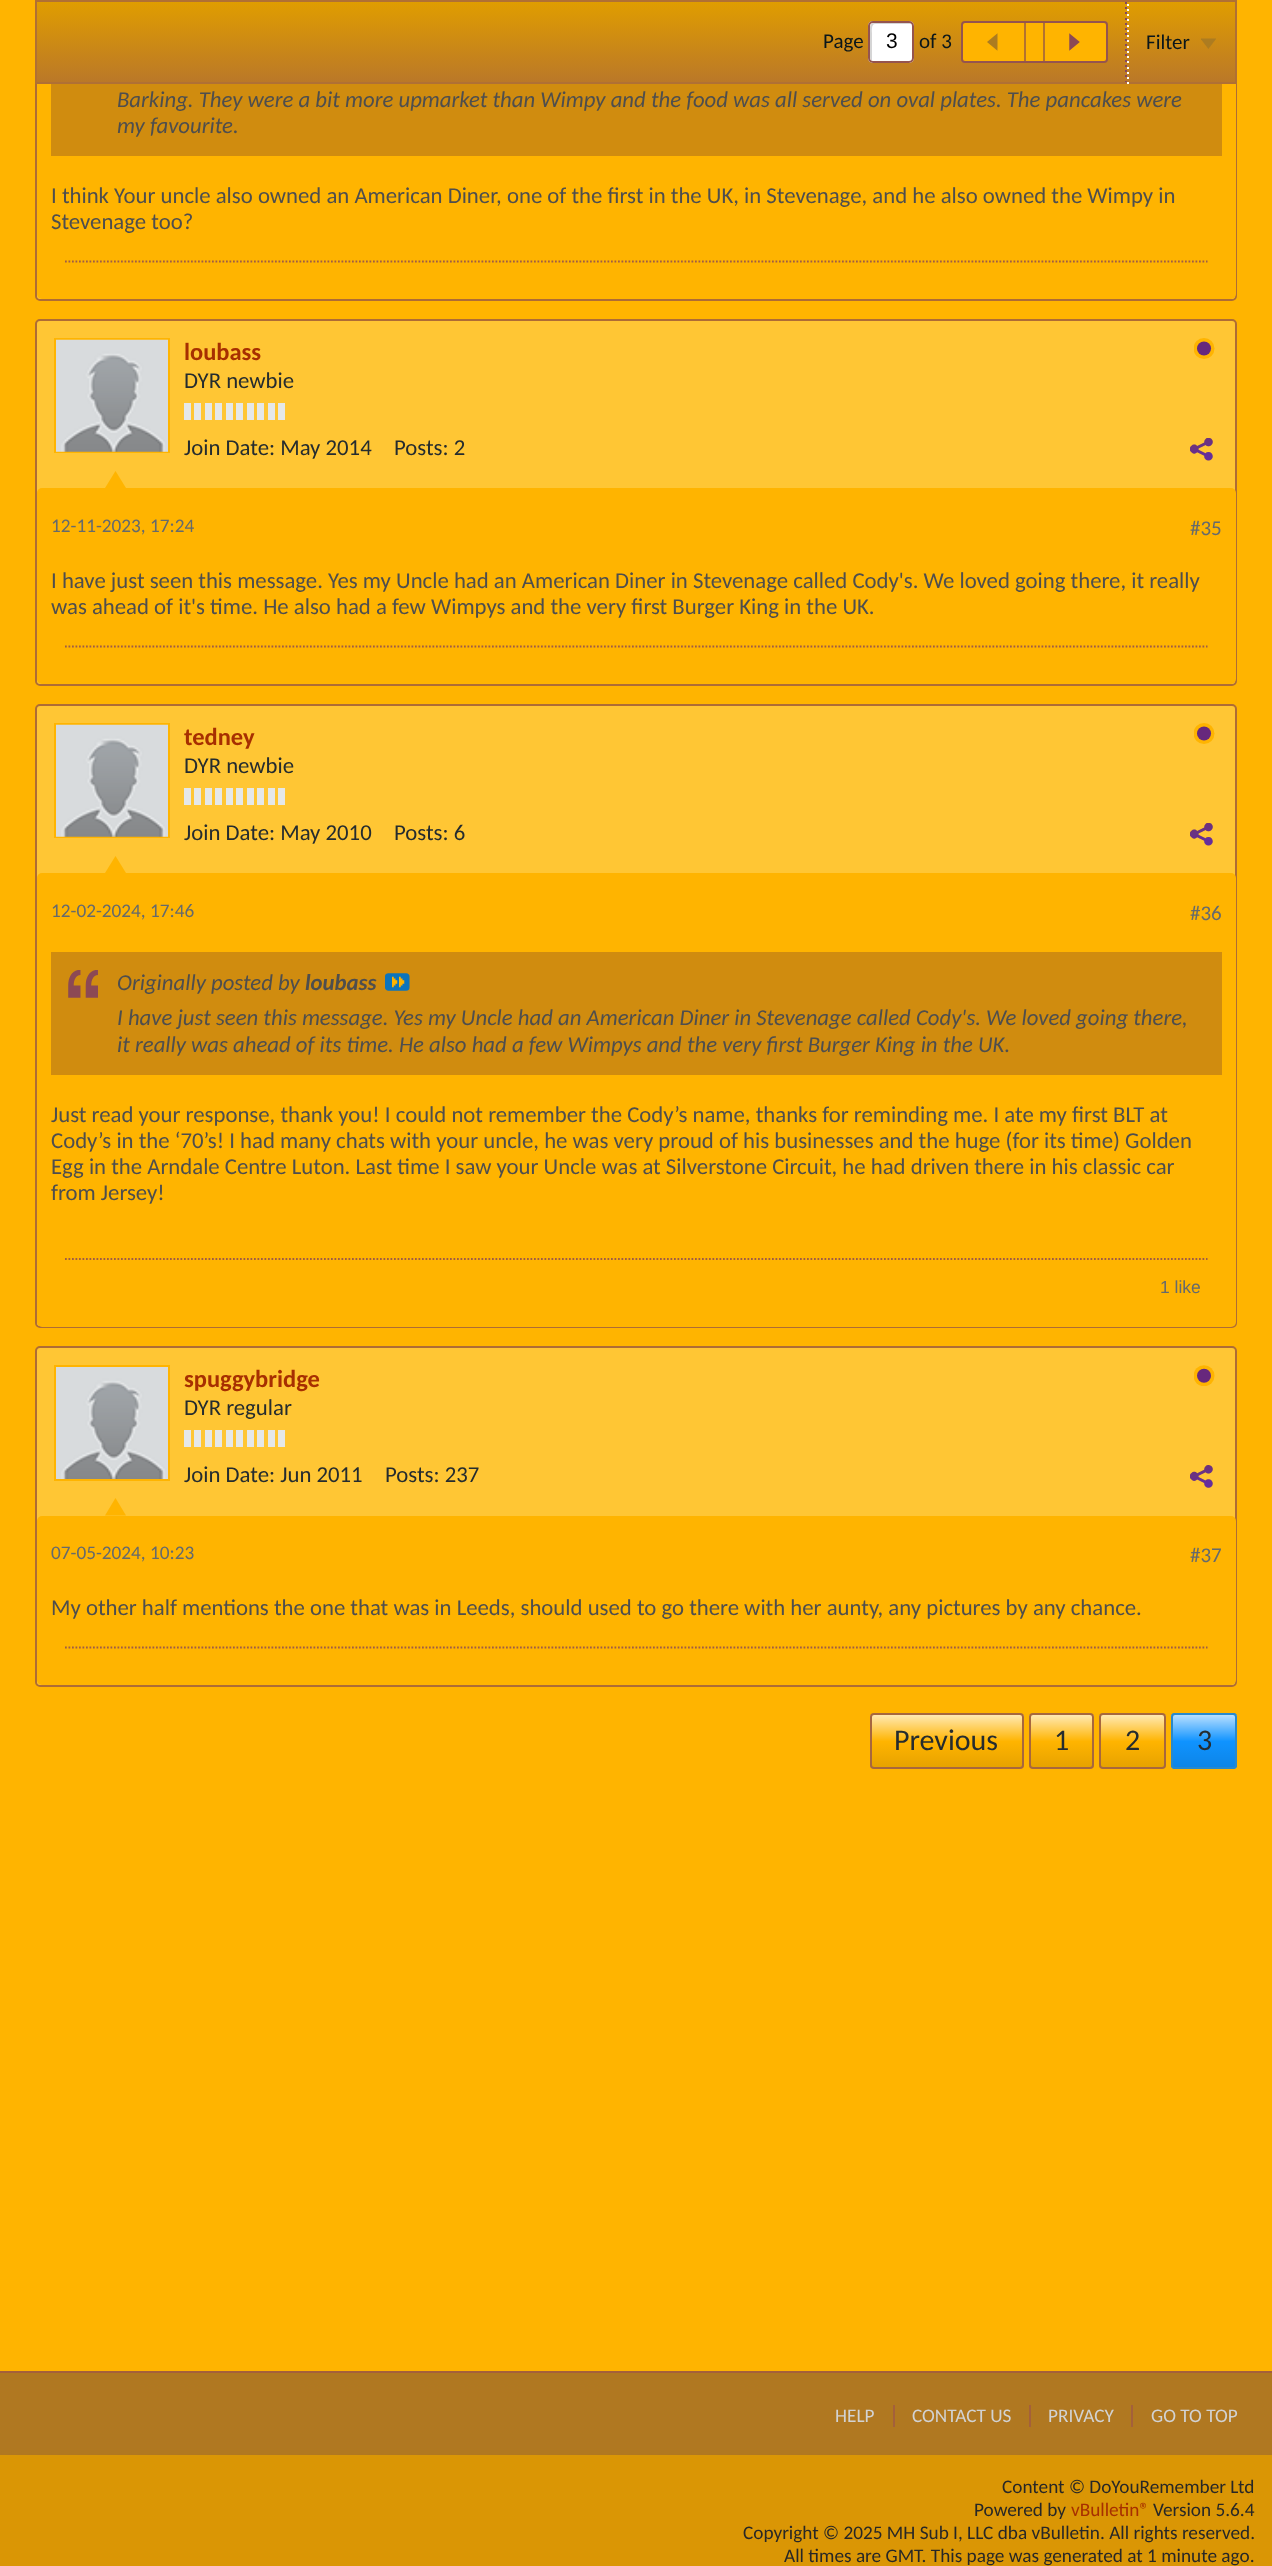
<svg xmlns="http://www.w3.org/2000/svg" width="1272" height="2566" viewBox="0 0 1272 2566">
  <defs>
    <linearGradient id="g1" gradientUnits="userSpaceOnUse" x1="636" y1="1.7" x2="636" y2="82"><stop offset="0" stop-color="#e09d00"/><stop offset="1" stop-color="#ba7828"/></linearGradient>
    <clipPath id="clip1"><rect x="870" y="1713" width="154" height="56" rx="4"/></clipPath>
    <linearGradient id="g2" gradientUnits="userSpaceOnUse" x1="947" y1="1768" x2="947" y2="1715"><stop offset="0" stop-color="#e6a200"/><stop offset="0.5" stop-color="#ffb400"/><stop offset="1" stop-color="#ffe9b3"/></linearGradient>
    <clipPath id="clip2"><rect x="1029" y="1713" width="65" height="56" rx="4"/></clipPath>
    <linearGradient id="g3" gradientUnits="userSpaceOnUse" x1="1061" y1="1768" x2="1061" y2="1715"><stop offset="0" stop-color="#e6a200"/><stop offset="0.5" stop-color="#ffb400"/><stop offset="1" stop-color="#ffe9b3"/></linearGradient>
    <clipPath id="clip3"><rect x="1099" y="1713" width="67" height="56" rx="4"/></clipPath>
    <linearGradient id="g4" gradientUnits="userSpaceOnUse" x1="1132" y1="1768" x2="1132" y2="1715"><stop offset="0" stop-color="#e6a200"/><stop offset="0.5" stop-color="#ffb400"/><stop offset="1" stop-color="#ffe9b3"/></linearGradient>
    <clipPath id="clip4"><rect x="1171" y="1713" width="66" height="56" rx="4"/></clipPath>
    <linearGradient id="g5" gradientUnits="userSpaceOnUse" x1="1204" y1="1768" x2="1204" y2="1715"><stop offset="0" stop-color="#000000" stop-opacity="0.1"/><stop offset="0.5" stop-color="#000000" stop-opacity="0"/><stop offset="0.5" stop-color="#ffffff" stop-opacity="0"/><stop offset="1" stop-color="#ffffff" stop-opacity="0.7"/></linearGradient>
  </defs>
  <rect width="100%" height="100%" fill="#da9605"/>
  <rect x="0" y="0" width="1272" height="2371" fill="#ffb400"/>
  <rect x="36" y="-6" width="1200" height="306" rx="4" fill="#ffc634" stroke="#ae6c35" stroke-width="2"/>
  <rect x="37" y="-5" width="1199" height="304" rx="5" fill="#ffb400"/>
  <rect x="37" y="2" width="1198" height="80" fill="url(#g1)"/>
  <rect x="36" y="1" width="1200" height="82" fill="none" stroke="#b07034" stroke-width="2"/>
  <text x="823" y="48" font-family="Carlito" font-size="21" fill="#09161b">Page</text>
  <rect x="868" y="21" width="46" height="42" rx="5" fill="#ffffff"/>
  <path d="M875 24H911C910 23 909 23 908 23H874C872 23 870 25 870 27V57C870 59 871 60 872 61V33C872 32 871 24 875 24Z" fill="#d5d5d5"/>
  <rect x="869" y="22" width="44" height="40" rx="4" fill="none" stroke="#95544f" stroke-width="2"/>
  <text x="886" y="48" font-family="Liberation Sans" font-size="21" fill="#000000">3</text>
  <text x="919" y="48" font-family="Carlito" font-size="21" fill="#09161b">of 3</text>
  <rect x="962" y="22" width="145" height="40" rx="3" fill="#ffb400" stroke="#95544f" stroke-width="2"/>
  <rect x="1024" y="23" width="2" height="38" fill="#b37230"/>
  <image x="987" y="33" width="11" height="18" href="img1.png"/>
  <rect x="1043" y="23" width="2" height="38" fill="#b37230"/>
  <image x="1069" y="33" width="11" height="18" href="img2.png"/>
  <rect x="1125" y="2" width="2" height="2" fill="#854762"/>
  <rect x="1125" y="7" width="2" height="2" fill="#854762"/>
  <rect x="1125" y="12" width="2" height="2" fill="#854762"/>
  <rect x="1125" y="18" width="2" height="2" fill="#854762"/>
  <rect x="1125" y="23" width="2" height="2" fill="#854762"/>
  <rect x="1125" y="28" width="2" height="2" fill="#854762"/>
  <rect x="1125" y="33" width="2" height="2" fill="#854762"/>
  <rect x="1125" y="39" width="2" height="2" fill="#854762"/>
  <rect x="1125" y="44" width="2" height="2" fill="#854762"/>
  <rect x="1125" y="49" width="2" height="2" fill="#854762"/>
  <rect x="1125" y="54" width="2" height="2" fill="#854762"/>
  <rect x="1125" y="60" width="2" height="2" fill="#854762"/>
  <rect x="1125" y="65" width="2" height="2" fill="#854762"/>
  <rect x="1125" y="70" width="2" height="2" fill="#854762"/>
  <rect x="1125" y="75" width="2" height="2" fill="#854762"/>
  <rect x="1125" y="81" width="2" height="1" fill="#854762"/>
  <rect x="1127" y="4" width="2" height="2" fill="#ffffff"/>
  <rect x="1127" y="9" width="2" height="2" fill="#ffffff"/>
  <rect x="1127" y="14" width="2" height="2" fill="#ffffff"/>
  <rect x="1127" y="19" width="2" height="2" fill="#ffffff"/>
  <rect x="1127" y="25" width="2" height="2" fill="#ffffff"/>
  <rect x="1127" y="30" width="2" height="2" fill="#ffffff"/>
  <rect x="1127" y="35" width="2" height="2" fill="#ffffff"/>
  <rect x="1127" y="40" width="2" height="2" fill="#ffffff"/>
  <rect x="1127" y="46" width="2" height="2" fill="#ffffff"/>
  <rect x="1127" y="51" width="2" height="2" fill="#ffffff"/>
  <rect x="1127" y="56" width="2" height="2" fill="#ffffff"/>
  <rect x="1127" y="61" width="2" height="2" fill="#ffffff"/>
  <rect x="1127" y="67" width="2" height="2" fill="#ffffff"/>
  <rect x="1127" y="72" width="2" height="2" fill="#ffffff"/>
  <rect x="1127" y="77" width="2" height="2" fill="#ffffff"/>
  <rect x="1127" y="82" width="2" height="2" fill="#ffffff"/>
  <text x="1146" y="49" font-family="Carlito" font-size="21" fill="#09161b">Filter</text>
  <image x="1201" y="38" width="15" height="11" href="img3.png"/>
  <rect x="51" y="84" width="1171" height="72" fill="#d08c0f"/>
  <text x="117" y="107" font-family="Carlito" font-size="22.75" font-style="italic" fill="#4e4e4e">Barking. They were a bit more upmarket than Wimpy and the food was all served on oval plates. The pancakes were</text>
  <text x="117" y="133" font-family="Carlito" font-size="22.75" font-style="italic" fill="#4e4e4e">my favourite.</text>
  <text x="51" y="203" font-family="Carlito" font-size="22.75" fill="#4e4e4e">I think Your uncle also owned an American Diner, one of the first in the UK, in Stevenage, and he also owned the Wimpy in</text>
  <text x="51" y="229" font-family="Carlito" font-size="22.75" fill="#4e4e4e">Stevenage too?</text>
  <path d="M65 261.5H1207.5" fill="none" stroke="#9e5c46" stroke-width="1.8" stroke-dasharray="1.75 1.75"/>
  <rect x="36" y="320" width="1200" height="365" rx="4" fill="#ffc634" stroke="#ae6c35" stroke-width="2"/>
  <rect x="55" y="339" width="114" height="113" fill="none" stroke="#ffb400" stroke-width="2"/>
  <image x="56" y="339" width="112" height="113" href="img4.png"/>
  <text x="184" y="360" font-family="Carlito" font-size="24.5" font-weight="bold" fill="#a72f01">loubass</text>
  <image x="1194" y="338" width="21" height="21" href="img5.png"/>
  <text x="184" y="388" font-family="Carlito" font-size="22.75" fill="#252c2f">DYR newbie</text>
  <rect x="184" y="403" width="7" height="17" fill="#e5e8e9"/>
  <rect x="194" y="403" width="7" height="17" fill="#e5e8e9"/>
  <rect x="205" y="403" width="7" height="17" fill="#e5e8e9"/>
  <rect x="215" y="403" width="7" height="17" fill="#e5e8e9"/>
  <rect x="226" y="403" width="7" height="17" fill="#e5e8e9"/>
  <rect x="236" y="403" width="7" height="17" fill="#e5e8e9"/>
  <rect x="247" y="403" width="7" height="17" fill="#e5e8e9"/>
  <rect x="257" y="403" width="7" height="17" fill="#e5e8e9"/>
  <rect x="268" y="403" width="7" height="17" fill="#e5e8e9"/>
  <rect x="278" y="403" width="7" height="17" fill="#e5e8e9"/>
  <text x="184" y="455" font-family="Carlito" font-size="22.75" fill="#252c2f">Join Date: May 2014</text>
  <text x="394" y="455" font-family="Carlito" font-size="22.75" fill="#252c2f">Posts: 2</text>
  <image x="1190" y="438" width="23" height="23" href="img6.png"/>
  <rect x="37" y="488" width="1199" height="196" rx="5" fill="#ffb400"/>
  <path d="M126 488H105L115.5 471Z" fill="#ffb400"/>
  <text x="51" y="532" font-family="Carlito" font-size="19.25" fill="#656a6d">12-11-2023, 17:24</text>
  <text x="1190" y="535" font-family="Carlito" font-size="21" fill="#656a6d">#35</text>
  <text x="51" y="588" font-family="Carlito" font-size="22.75" fill="#4e4e4e">I have just seen this message. Yes my Uncle had an American Diner in Stevenage called Cody's. We loved going there, it really</text>
  <text x="51" y="614" font-family="Carlito" font-size="22.75" fill="#4e4e4e">was ahead of it's time. He also had a few Wimpys and the very first Burger King in the UK.</text>
  <path d="M65 646.5H1207.5" fill="none" stroke="#9e5c46" stroke-width="1.8" stroke-dasharray="1.75 1.75"/>
  <rect x="36" y="705" width="1200" height="622" rx="4" fill="#ffc634" stroke="#ae6c35" stroke-width="2"/>
  <rect x="55" y="724" width="114" height="113" fill="none" stroke="#ffb400" stroke-width="2"/>
  <image x="56" y="724" width="112" height="113" href="img7.png"/>
  <text x="184" y="745" font-family="Carlito" font-size="24.5" font-weight="bold" fill="#a72f01">tedney</text>
  <image x="1194" y="723" width="21" height="21" href="img5.png"/>
  <text x="184" y="773" font-family="Carlito" font-size="22.75" fill="#252c2f">DYR newbie</text>
  <rect x="184" y="788" width="7" height="17" fill="#e5e8e9"/>
  <rect x="194" y="788" width="7" height="17" fill="#e5e8e9"/>
  <rect x="205" y="788" width="7" height="17" fill="#e5e8e9"/>
  <rect x="215" y="788" width="7" height="17" fill="#e5e8e9"/>
  <rect x="226" y="788" width="7" height="17" fill="#e5e8e9"/>
  <rect x="236" y="788" width="7" height="17" fill="#e5e8e9"/>
  <rect x="247" y="788" width="7" height="17" fill="#e5e8e9"/>
  <rect x="257" y="788" width="7" height="17" fill="#e5e8e9"/>
  <rect x="268" y="788" width="7" height="17" fill="#e5e8e9"/>
  <rect x="278" y="788" width="7" height="17" fill="#e5e8e9"/>
  <text x="184" y="840" font-family="Carlito" font-size="22.75" fill="#252c2f">Join Date: May 2010</text>
  <text x="394" y="840" font-family="Carlito" font-size="22.75" fill="#252c2f">Posts: 6</text>
  <image x="1190" y="823" width="23" height="23" href="img8.png"/>
  <rect x="37" y="873" width="1199" height="454" rx="5" fill="#ffb400"/>
  <path d="M126 873H105L115.5 856Z" fill="#ffb400"/>
  <text x="51" y="917" font-family="Carlito" font-size="19.25" fill="#656a6d">12-02-2024, 17:46</text>
  <text x="1190" y="920" font-family="Carlito" font-size="21" fill="#656a6d">#36</text>
  <rect x="51" y="952" width="1171" height="123" fill="#d08c0f"/>
  <image x="68" y="970" width="30" height="28" href="img9.png"/>
  <text x="117" y="990" font-family="Carlito" font-size="22.75" font-style="italic" fill="#4e4e4e">Originally posted by</text>
  <text x="305" y="990" font-family="Carlito" font-size="22.75" font-weight="bold" font-style="italic" fill="#4e4e4e">loubass</text>
  <image x="385" y="973" width="25" height="18" href="img10.png"/>
  <text x="117" y="1025" font-family="Carlito" font-size="22.75" font-style="italic" fill="#4e4e4e">I have just seen this message. Yes my Uncle had an American Diner in Stevenage called Cody's. We loved going there,</text>
  <text x="117" y="1052" font-family="Carlito" font-size="22.75" font-style="italic" fill="#4e4e4e">it really was ahead of its time. He also had a few Wimpys and the very first Burger King in the UK.</text>
  <text x="51" y="1122" font-family="Carlito" font-size="22.75" fill="#4e4e4e">Just read your response, thank you! I could not remember the Cody’s name, thanks for reminding me. I ate my first BLT at</text>
  <text x="51" y="1148" font-family="Carlito" font-size="22.75" fill="#4e4e4e">Cody’s in the ‘70’s! I had many chats with your uncle, he was very proud of his businesses and the huge (for its time) Golden</text>
  <text x="51" y="1174" font-family="Carlito" font-size="22.75" fill="#4e4e4e">Egg in the Arndale Centre Luton. Last time I saw your Uncle was at Silverstone Circuit, he had driven there in his classic car</text>
  <text x="51" y="1200" font-family="Carlito" font-size="22.75" fill="#4e4e4e">from Jersey!</text>
  <path d="M65 1259H1207.5" fill="none" stroke="#9e5c46" stroke-width="1.8" stroke-dasharray="1.75 1.75"/>
  <text x="1160" y="1293" font-family="Liberation Sans" font-size="17.5" fill="#656a6d">1 like</text>
  <rect x="36" y="1347" width="1200" height="339" rx="4" fill="#ffc634" stroke="#ae6c35" stroke-width="2"/>
  <rect x="55" y="1366" width="114" height="114" fill="none" stroke="#ffb400" stroke-width="2"/>
  <image x="56" y="1367" width="112" height="112" href="img11.png"/>
  <text x="184" y="1387" font-family="Carlito" font-size="24.5" font-weight="bold" fill="#a72f01">spuggybridge</text>
  <image x="1194" y="1365" width="21" height="21" href="img12.png"/>
  <text x="184" y="1415" font-family="Carlito" font-size="22.75" fill="#252c2f">DYR regular</text>
  <rect x="184" y="1430" width="7" height="17" fill="#e5e8e9"/>
  <rect x="194" y="1430" width="7" height="17" fill="#e5e8e9"/>
  <rect x="205" y="1430" width="7" height="17" fill="#e5e8e9"/>
  <rect x="215" y="1430" width="7" height="17" fill="#e5e8e9"/>
  <rect x="226" y="1430" width="7" height="17" fill="#e5e8e9"/>
  <rect x="236" y="1430" width="7" height="17" fill="#e5e8e9"/>
  <rect x="247" y="1430" width="7" height="17" fill="#e5e8e9"/>
  <rect x="257" y="1430" width="7" height="17" fill="#e5e8e9"/>
  <rect x="268" y="1430" width="7" height="17" fill="#e5e8e9"/>
  <rect x="278" y="1430" width="7" height="17" fill="#e5e8e9"/>
  <text x="184" y="1482" font-family="Carlito" font-size="22.75" fill="#252c2f">Join Date: Jun 2011</text>
  <text x="385" y="1482" font-family="Carlito" font-size="22.75" fill="#252c2f">Posts: 237</text>
  <image x="1190" y="1465" width="23" height="23" href="img13.png"/>
  <rect x="37" y="1516" width="1199" height="169" rx="5" fill="#ffb400"/>
  <path d="M126 1515.5H105L115.5 1498Z" fill="#ffb400"/>
  <text x="51" y="1559" font-family="Carlito" font-size="19.25" fill="#656a6d">07-05-2024, 10:23</text>
  <text x="1190" y="1562" font-family="Carlito" font-size="21" fill="#656a6d">#37</text>
  <text x="51" y="1615" font-family="Carlito" font-size="22.75" fill="#4e4e4e">My other half mentions the one that was in Leeds, should used to go there with her aunty, any pictures by any chance.</text>
  <path d="M65 1647.5H1207.5" fill="none" stroke="#9e5c46" stroke-width="1.8" stroke-dasharray="1.75 1.75"/>
  <g clip-path="url(#clip1)">
    <rect x="870" y="1715" width="154" height="53" fill="url(#g2)"/>
  </g>
  <rect x="871" y="1714" width="152" height="54" rx="3" fill="none" stroke="#a7673e" stroke-width="2"/>
  <text x="894" y="1750" font-family="Carlito" font-size="30" fill="#252c2f">Previous</text>
  <g clip-path="url(#clip2)">
    <rect x="1029" y="1715" width="65" height="53" fill="url(#g3)"/>
  </g>
  <rect x="1030" y="1714" width="63" height="54" rx="3" fill="none" stroke="#a7673e" stroke-width="2"/>
  <text x="1054" y="1750" font-family="Carlito" font-size="30" fill="#252c2f">1</text>
  <g clip-path="url(#clip3)">
    <rect x="1099" y="1715" width="67" height="53" fill="url(#g4)"/>
  </g>
  <rect x="1100" y="1714" width="65" height="54" rx="3" fill="none" stroke="#a7673e" stroke-width="2"/>
  <text x="1125" y="1750" font-family="Carlito" font-size="30" fill="#252c2f">2</text>
  <rect x="1171" y="1713" width="66" height="56" rx="4" fill="#0f93ff"/>
  <g clip-path="url(#clip4)">
    <rect x="1171" y="1715" width="66" height="53" fill="url(#g5)"/>
  </g>
  <rect x="1172" y="1714" width="64" height="54" rx="3" fill="none" stroke="#2989cc" stroke-width="2"/>
  <text x="1197" y="1750" font-family="Carlito" font-size="30" fill="#252c2f">3</text>
  <rect x="0" y="2373" width="1272" height="82" fill="#b07821"/>
  <rect x="0" y="2371" width="1272" height="2" fill="#a4603b"/>
  <text x="835" y="2422" font-family="Carlito" font-size="19.25" fill="#d2d2d2">HELP</text>
  <text x="912" y="2422" font-family="Carlito" font-size="19.25" fill="#d2d2d2">CONTACT US</text>
  <rect x="893" y="2405" width="2" height="22" fill="#a4603b"/>
  <text x="1048" y="2422" font-family="Carlito" font-size="19.25" fill="#d2d2d2">PRIVACY</text>
  <rect x="1029" y="2405" width="2" height="22" fill="#a4603b"/>
  <text x="1151" y="2422" font-family="Carlito" font-size="19.25" fill="#d2d2d2">GO TO TOP</text>
  <rect x="1131" y="2405" width="2" height="22" fill="#a4603b"/>
  <text x="1002" y="2493" font-family="Carlito" font-size="19.25" fill="#272727">Content © DoYouRemember Ltd</text>
  <text x="974" y="2516" font-family="Carlito" font-size="19.25" fill="#272727">Powered by</text>
  <text x="1071" y="2516" font-family="Carlito" font-size="19.25" fill="#a72f01">vBulletin®</text>
  <text x="1153" y="2516" font-family="Carlito" font-size="19.25" fill="#272727">Version 5.6.4</text>
  <text x="743" y="2539" font-family="Carlito" font-size="19.25" fill="#272727">Copyright © 2025 MH Sub I, LLC dba vBulletin. All rights reserved.</text>
  <text x="784" y="2562" font-family="Carlito" font-size="19.25" fill="#272727">All times are GMT. This page was generated at 1 minute ago.</text>
</svg>
